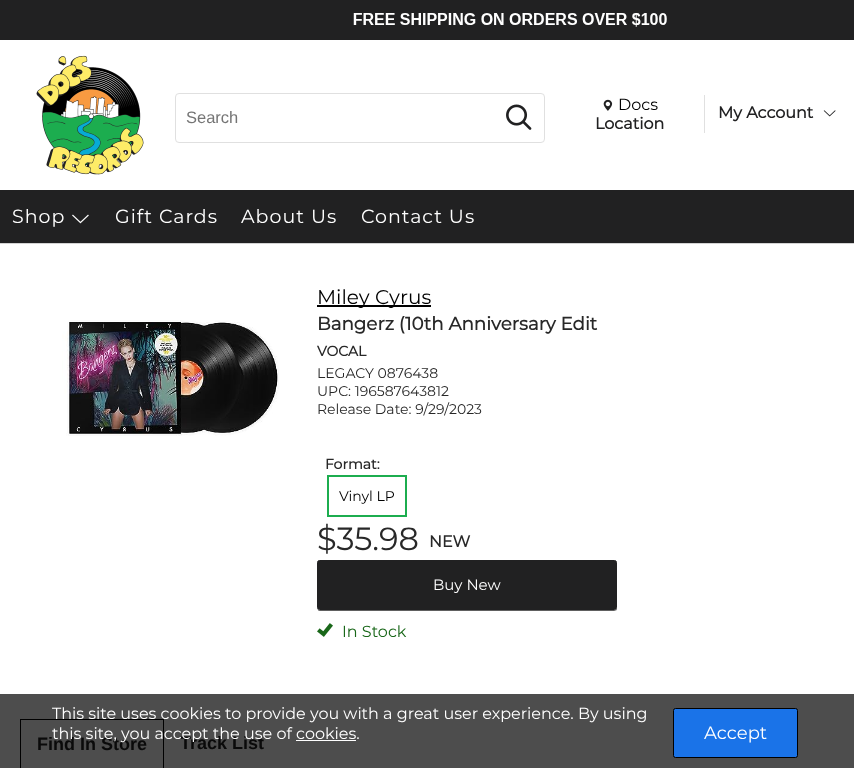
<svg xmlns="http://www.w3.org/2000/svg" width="854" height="768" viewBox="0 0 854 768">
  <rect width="100%" height="100%" fill="#ffffff"/>
  <rect x="0" y="694" width="854" height="74" fill="#4d4d4d"/>
  <rect x="0" y="0" width="854" height="40" fill="#212122"/>
  <image x="353" y="13" width="314" height="14" href="img1.png"/>
  <image x="36" y="55" width="108" height="120" href="img2.png"/>
  <rect x="175.5" y="93.5" width="369" height="49" rx="3.5" fill="none" stroke="#e0e0e0"/>
  <text x="186" y="123" font-family="Liberation Sans" font-size="16.5" fill="#757575">Search</text>
  <image x="506" y="104" width="26" height="26" href="img3.png"/>
  <rect x="704" y="95" width="1" height="38" fill="#e0e0e0"/>
  <image x="603" y="99" width="10" height="12" href="img4.png"/>
  <text x="618" y="110" font-family="Montserrat" font-size="16" font-weight="100" fill="#000000">Docs</text>
  <text x="595" y="129" font-family="Montserrat" font-size="16" font-weight="bold" fill="#212122">Location</text>
  <text x="718" y="118" font-family="Montserrat" font-size="16" font-weight="bold" fill="#212122">My Account</text>
  <image x="823" y="110" width="13" height="7" href="img5.png"/>
  <rect x="0" y="190" width="854" height="53" fill="#212122"/>
  <text x="12" y="223" font-family="Montserrat" font-size="19" font-weight="100" letter-spacing="1" fill="#ffffff">Shop</text>
  <image x="72" y="214" width="17" height="10" href="img6.png"/>
  <text x="115" y="223" font-family="Montserrat" font-size="19" font-weight="100" letter-spacing="1" fill="#ffffff">Gift Cards</text>
  <text x="241" y="223" font-family="Montserrat" font-size="19" font-weight="100" letter-spacing="1" fill="#ffffff">About Us</text>
  <text x="361" y="223" font-family="Montserrat" font-size="19" font-weight="100" letter-spacing="1" fill="#ffffff">Contact Us</text>
  <rect x="0" y="243" width="854" height="1" fill="#d3d3d3"/>
  <image x="62" y="320" width="217" height="116" href="img7.png"/>
  <rect x="317" y="305" width="114" height="2" fill="#000000"/>
  <text x="317" y="304" font-family="Montserrat" font-size="20" font-weight="100" fill="#000000">Miley Cyrus</text>
  <text x="317" y="330" font-family="Montserrat" font-size="18.25" font-weight="bold" fill="#282828">Bangerz (10th Anniversary Edit</text>
  <text x="317" y="356" font-family="Montserrat" font-size="14" font-weight="bold" fill="#282828">VOCAL</text>
  <text x="317" y="378" font-family="Montserrat" font-size="14" font-weight="100" fill="#282828">LEGACY 0876438</text>
  <text x="317" y="396" font-family="Montserrat" font-size="14" font-weight="100" fill="#282828">UPC: 196587643812</text>
  <text x="317" y="414" font-family="Montserrat" font-size="14" font-weight="100" fill="#282828">Release Date: 9/29/2023</text>
  <text x="325" y="469" font-family="Montserrat" font-size="14" font-weight="bold" fill="#282828">Format:</text>
  <rect x="328" y="476" width="78" height="40" fill="none" stroke="#1cad4f" stroke-width="2"/>
  <text x="339" y="501" font-family="Montserrat" font-size="14" font-weight="100" fill="#000000">Vinyl LP</text>
  <text x="317" y="550" font-family="Montserrat" font-size="32" font-weight="100" fill="#282828">$35.98</text>
  <text x="429" y="547" font-family="Montserrat" font-size="16" font-weight="bold" fill="#282828">NEW</text>
  <path d="M317 608C317 609 318 611 320 611H614L617 610V608C617 609 616 610 615 610H319C318 610 317 609 317 608Z" fill="#606060"/>
  <rect x="317.5" y="560.5" width="299" height="49" rx="2" fill="#212122" stroke="#212122"/>
  <text x="433" y="590" font-family="Montserrat" font-size="15" font-weight="100" fill="#ffffff">Buy New</text>
  <image x="317" y="623" width="16" height="14" href="img8.png"/>
  <text x="342" y="637" font-family="Montserrat" font-size="16" font-weight="100" fill="#196719">In Stock</text>
  <rect x="20" y="719" width="144" height="1" fill="#000000"/>
  <rect x="163" y="719" width="1" height="49" fill="#000000"/>
  <rect x="20" y="719" width="1" height="49" fill="#000000"/>
  <text x="37" y="750" font-family="Liberation Sans" font-size="18" font-weight="bold" fill="#0a0a0a">Find In Store</text>
  <text x="180" y="749" font-family="Liberation Sans" font-size="18" font-weight="bold" fill="#0a0a0a">Track List</text>
  <text x="52" y="719" font-family="Montserrat" font-size="16" font-weight="100" fill="#ffffff">This site uses cookies to provide you with a great user experience. By using</text>
  <text x="52" y="739" font-family="Montserrat" font-size="16" font-weight="100" fill="#ffffff">this site, you accept the use of cookies.</text>
  <rect x="296" y="740" width="60" height="1" fill="#ffffff"/>
  <rect x="673.5" y="708.5" width="124" height="49" rx="2" fill="#1a73e8" stroke="#000000"/>
  <text x="704" y="739" font-family="Montserrat" font-size="18" font-weight="100" fill="#ffffff">Accept</text>
</svg>
